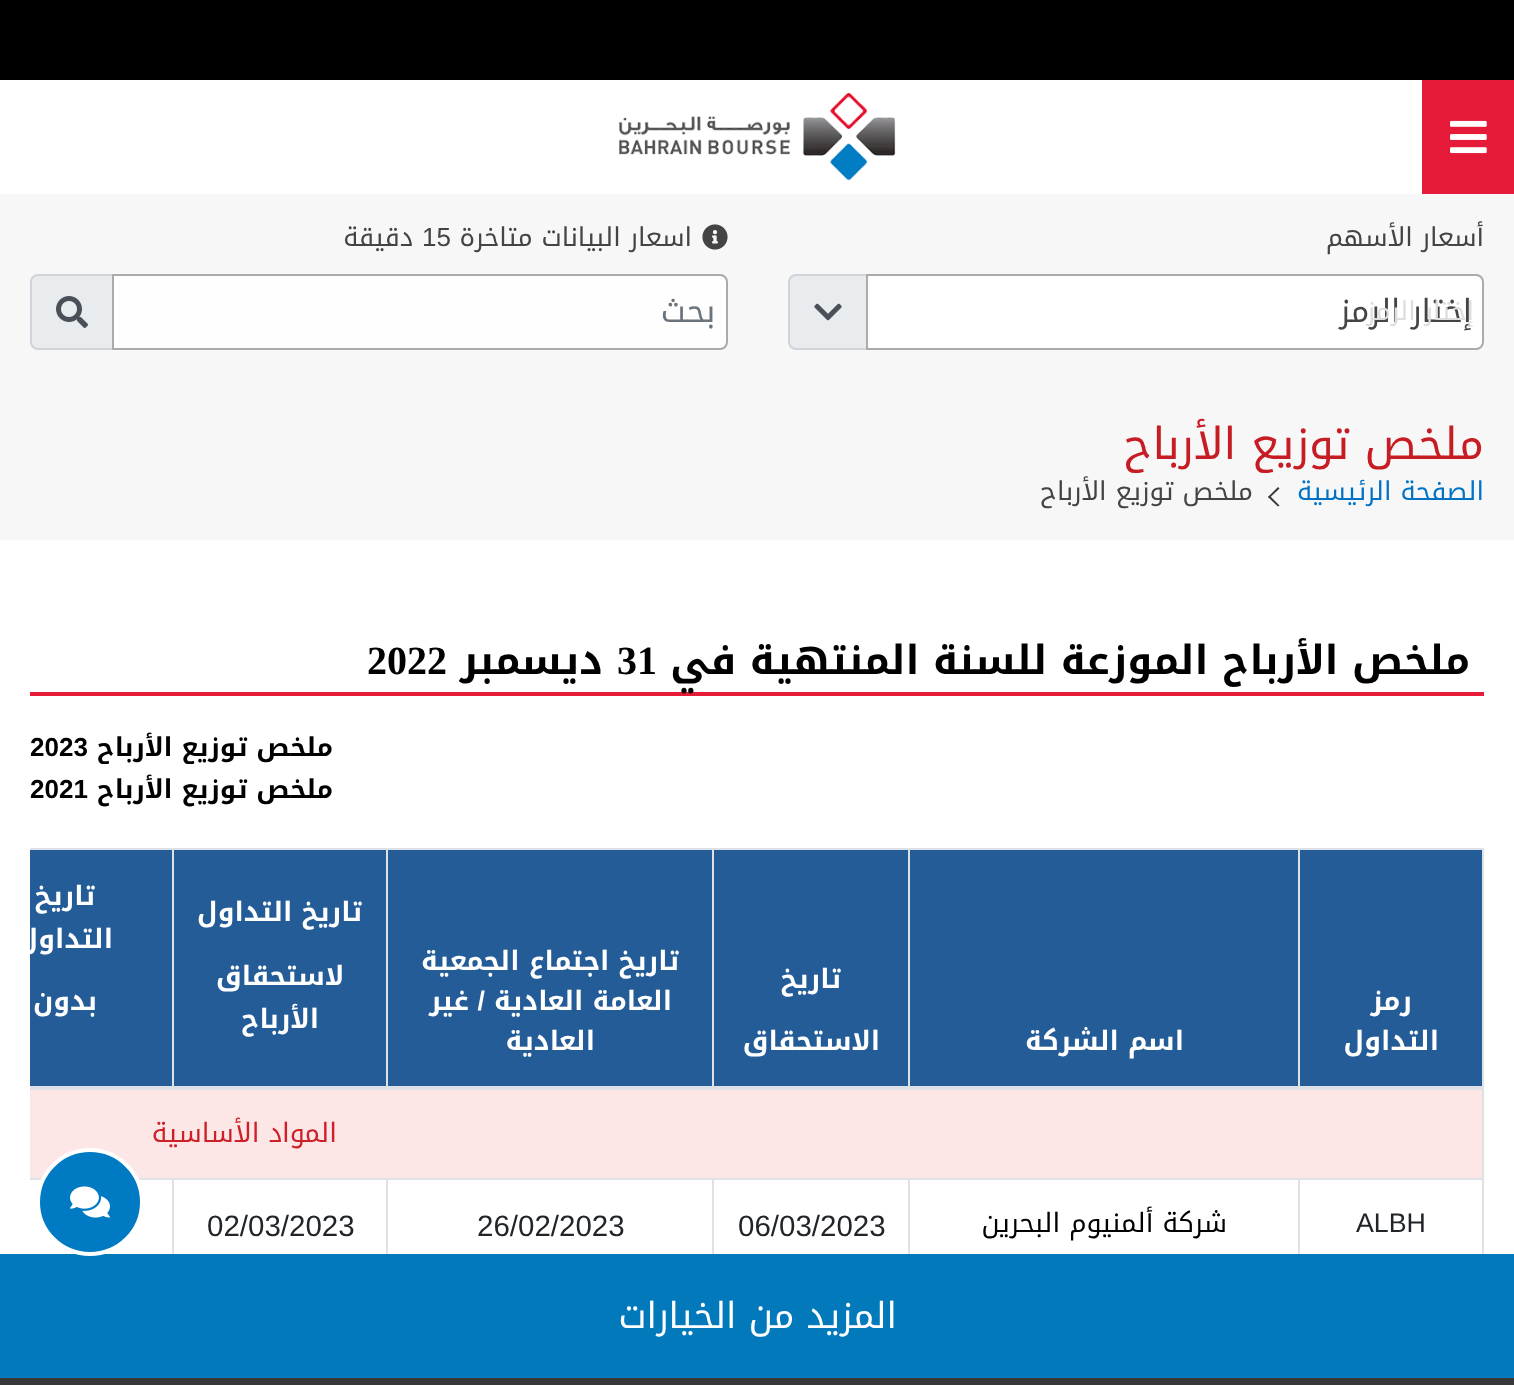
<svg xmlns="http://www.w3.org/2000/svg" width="1514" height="1385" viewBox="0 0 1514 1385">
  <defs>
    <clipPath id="clip1"><rect x="30" y="810" width="1454" height="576"/></clipPath>
  </defs>
  <rect width="100%" height="100%" fill="#ffffff"/>
  <rect x="0" y="0" width="1514" height="80" fill="#000000"/>
  <rect x="1422" y="80" width="92" height="114" fill="#e51a38"/>
  <image x="1450" y="120" width="37" height="34" href="img1.png"/>
  <image x="619" y="93" width="277" height="88" href="img2.png"/>
  <rect x="0" y="194" width="1514" height="346" fill="#f7f7f7"/>
  <text x="1484" y="246" font-family="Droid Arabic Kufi" font-size="26" direction="rtl" fill="#444444">أسعار الأسهم</text>
  <path d="M796 275H867V349H796C792 349 789 346 789 342V282C789 278 792 275 796 275Z" fill="#e9ecef" stroke="#ced4da" stroke-width="2"/>
  <path d="M867 275H1476C1480 275 1483 278 1483 282V342C1483 346 1480 349 1476 349H867Z" fill="#ffffff" stroke="#ababab" stroke-width="2"/>
  <text x="1472" y="322" font-family="Droid Arabic Kufi" font-size="32" direction="rtl" fill="#444444">إختار الرمز</text>
  <image x="814" y="303" width="28" height="18" href="img3.png"/>
  <text x="1474" y="320" font-family="Droid Arabic Kufi" font-size="26" direction="rtl" fill="#dddddd">إختار الرمز</text>
  <image x="702" y="224" width="26" height="26" href="img4.png"/>
  <text x="692" y="246" font-family="Droid Arabic Kufi" font-size="26" direction="rtl" fill="#444444">اسعار البيانات متاخرة</text>
  <text x="422" y="246" font-family="Liberation Sans" font-size="26" fill="#444444">15</text>
  <text x="413" y="246" font-family="Droid Arabic Kufi" font-size="26" direction="rtl" fill="#444444">دقيقة</text>
  <path d="M38 275H113V349H38C34 349 31 346 31 342V282C31 278 34 275 38 275Z" fill="#e9ecef" stroke="#ced4da" stroke-width="2"/>
  <path d="M113 275H720C724 275 727 278 727 282V342C727 346 724 349 720 349H113Z" fill="#fefefe" stroke="#ababab" stroke-width="2"/>
  <text x="715" y="322" font-family="Droid Arabic Kufi" font-size="32" direction="rtl" fill="#6c757d">بحث</text>
  <image x="56" y="296" width="32" height="32" href="img5.png"/>
  <text x="1484" y="459" font-family="Droid Arabic Kufi" font-size="44" direction="rtl" fill="#c71c24">ملخص توزيع الأرباح</text>
  <text x="1484" y="500" font-family="Droid Arabic Kufi" font-size="26" direction="rtl" fill="#0072c6">الصفحة الرئيسية</text>
  <path d="M1268 497L1278 487L1279.5 488.5L1269.5 498Z" fill="#383838"/>
  <path d="M1268 497L1269.5 495.5L1279.5 505.5L1278 506.5Z" fill="#383838"/>
  <text x="1253" y="500" font-family="Droid Arabic Kufi" font-size="26" direction="rtl" fill="#444444">ملخص توزيع الأرباح</text>
  <rect x="30" y="692" width="1454" height="4" fill="#e71a38"/>
  <text x="1470" y="674" font-family="Droid Arabic Kufi" font-size="40" font-weight="bold" direction="rtl" fill="#000000">ملخص الأرباح الموزعة للسنة المنتهية في</text>
  <text x="617" y="674" font-family="Liberation Serif" font-size="40" font-weight="bold" fill="#000000">31</text>
  <text x="603" y="674" font-family="Droid Arabic Kufi" font-size="40" font-weight="bold" direction="rtl" fill="#000000">ديسمبر</text>
  <text x="367" y="674" font-family="Liberation Serif" font-size="40" font-weight="bold" fill="#000000">2022</text>
  <text x="333" y="756" font-family="Droid Arabic Kufi" font-size="26" font-weight="bold" direction="rtl" fill="#000000">ملخص توزيع الأرباح</text>
  <text x="30" y="756" font-family="Liberation Sans" font-size="26" font-weight="bold" fill="#000000">2023</text>
  <text x="333" y="798" font-family="Droid Arabic Kufi" font-size="26" font-weight="bold" direction="rtl" fill="#000000">ملخص توزيع الأرباح</text>
  <rect x="101" y="764" width="92" height="1" fill="#ffffff"/>
  <text x="30" y="798" font-family="Liberation Sans" font-size="26" font-weight="bold" fill="#000000">2021</text>
  <rect x="30" y="850" width="1452" height="236" fill="#245c97"/>
  <rect x="30" y="848" width="144" height="2" fill="#dee2e6"/>
  <rect x="172" y="848" width="2" height="240" fill="#dee2e6"/>
  <rect x="172" y="848" width="216" height="2" fill="#dee2e6"/>
  <rect x="386" y="848" width="2" height="240" fill="#dee2e6"/>
  <rect x="386" y="848" width="328" height="2" fill="#dee2e6"/>
  <rect x="712" y="848" width="2" height="240" fill="#dee2e6"/>
  <rect x="712" y="848" width="198" height="2" fill="#dee2e6"/>
  <rect x="908" y="848" width="2" height="240" fill="#dee2e6"/>
  <rect x="908" y="848" width="392" height="2" fill="#dee2e6"/>
  <rect x="1298" y="848" width="2" height="240" fill="#dee2e6"/>
  <rect x="1298" y="848" width="186" height="2" fill="#dee2e6"/>
  <rect x="30" y="1178" width="144" height="2" fill="#dee2e6"/>
  <rect x="172" y="1178" width="2" height="76" fill="#dee2e6"/>
  <rect x="172" y="1178" width="216" height="2" fill="#dee2e6"/>
  <rect x="386" y="1178" width="2" height="76" fill="#dee2e6"/>
  <rect x="386" y="1178" width="328" height="2" fill="#dee2e6"/>
  <rect x="712" y="1178" width="2" height="76" fill="#dee2e6"/>
  <rect x="712" y="1178" width="198" height="2" fill="#dee2e6"/>
  <rect x="908" y="1178" width="2" height="76" fill="#dee2e6"/>
  <rect x="908" y="1178" width="392" height="2" fill="#dee2e6"/>
  <rect x="1298" y="1178" width="2" height="76" fill="#dee2e6"/>
  <rect x="1298" y="1178" width="186" height="2" fill="#dee2e6"/>
  <rect x="1482" y="1086" width="2" height="168" fill="#dee2e6"/>
  <rect x="1482" y="848" width="2" height="240" fill="#dee2e6"/>
  <text x="1412" y="1010" font-family="Droid Arabic Kufi" font-size="26.75" font-weight="bold" direction="rtl" fill="#ffffff">رمز</text>
  <text x="1439" y="1050" font-family="Droid Arabic Kufi" font-size="26.75" font-weight="bold" direction="rtl" fill="#ffffff">التداول</text>
  <text x="1184" y="1050" font-family="Droid Arabic Kufi" font-size="26.75" font-weight="bold" direction="rtl" fill="#ffffff">اسم الشركة</text>
  <text x="841" y="988" font-family="Droid Arabic Kufi" font-size="26.75" font-weight="bold" direction="rtl" fill="#ffffff">تاريخ</text>
  <text x="880" y="1050" font-family="Droid Arabic Kufi" font-size="26.75" font-weight="bold" direction="rtl" fill="#ffffff">الاستحقاق</text>
  <text x="679" y="970" font-family="Droid Arabic Kufi" font-size="26.75" font-weight="bold" direction="rtl" fill="#ffffff">تاريخ اجتماع الجمعية</text>
  <text x="672" y="1010" font-family="Droid Arabic Kufi" font-size="26.75" font-weight="bold" direction="rtl" fill="#ffffff">العامة العادية</text>
  <text x="485" y="1010" font-family="Liberation Sans" font-size="26.75" font-weight="bold" direction="rtl" fill="#ffffff">/</text>
  <text x="469" y="1010" font-family="Droid Arabic Kufi" font-size="26.75" font-weight="bold" direction="rtl" fill="#ffffff">غير</text>
  <text x="595" y="1050" font-family="Droid Arabic Kufi" font-size="26.75" font-weight="bold" direction="rtl" fill="#ffffff">العادية</text>
  <text x="362" y="921" font-family="Droid Arabic Kufi" font-size="26.75" font-weight="bold" direction="rtl" fill="#ffffff">تاريخ التداول</text>
  <text x="344" y="985" font-family="Droid Arabic Kufi" font-size="26.75" font-weight="bold" direction="rtl" fill="#ffffff">لاستحقاق</text>
  <text x="319" y="1028" font-family="Droid Arabic Kufi" font-size="26.75" font-weight="bold" direction="rtl" fill="#ffffff">الأرباح</text>
  <rect x="30" y="1086" width="1454" height="4" fill="#dee2e6"/>
  <text x="95" y="905" font-family="Droid Arabic Kufi" font-size="26.75" font-weight="bold" direction="rtl" fill="#ffffff">تاريخ</text>
  <g clip-path="url(#clip1)">
    <text x="113" y="948" font-family="Droid Arabic Kufi" font-size="26.75" font-weight="bold" direction="rtl" fill="#ffffff">التداول</text>
  </g>
  <text x="97" y="1010" font-family="Droid Arabic Kufi" font-size="26.75" font-weight="bold" direction="rtl" fill="#ffffff">بدون</text>
  <rect x="30" y="1090" width="1452" height="88" fill="#fce6e6"/>
  <text x="337" y="1142" font-family="Droid Arabic Kufi" font-size="26.75" direction="rtl" fill="#cf1f29">المواد الأساسية</text>
  <text x="1356" y="1232" font-family="Liberation Sans" font-size="26.75" fill="#212529">ALBH</text>
  <text x="1227" y="1232" font-family="Droid Arabic Kufi" font-size="26.75" direction="rtl" fill="#000000">شركة ألمنيوم البحرين</text>
  <text x="738" y="1236" font-family="Liberation Sans" font-size="29.5" fill="#212529">06/03/2023</text>
  <text x="477" y="1236" font-family="Liberation Sans" font-size="29.5" fill="#212529">26/02/2023</text>
  <text x="207" y="1236" font-family="Liberation Sans" font-size="29.5" fill="#212529">02/03/2023</text>
  <rect x="0" y="1254" width="1514" height="124" fill="#0179bb"/>
  <rect x="0" y="1378" width="1514" height="7" fill="#383838"/>
  <text x="897" y="1328" font-family="Droid Arabic Kufi" font-size="36" direction="rtl" fill="#ffffff">المزيد من الخيارات</text>
  <circle cx="90" cy="1202" r="52" fill="#007ac3" stroke="#ffffff" stroke-width="4"/>
  <image x="70" y="1186" width="40" height="32" href="img6.png"/>
</svg>
